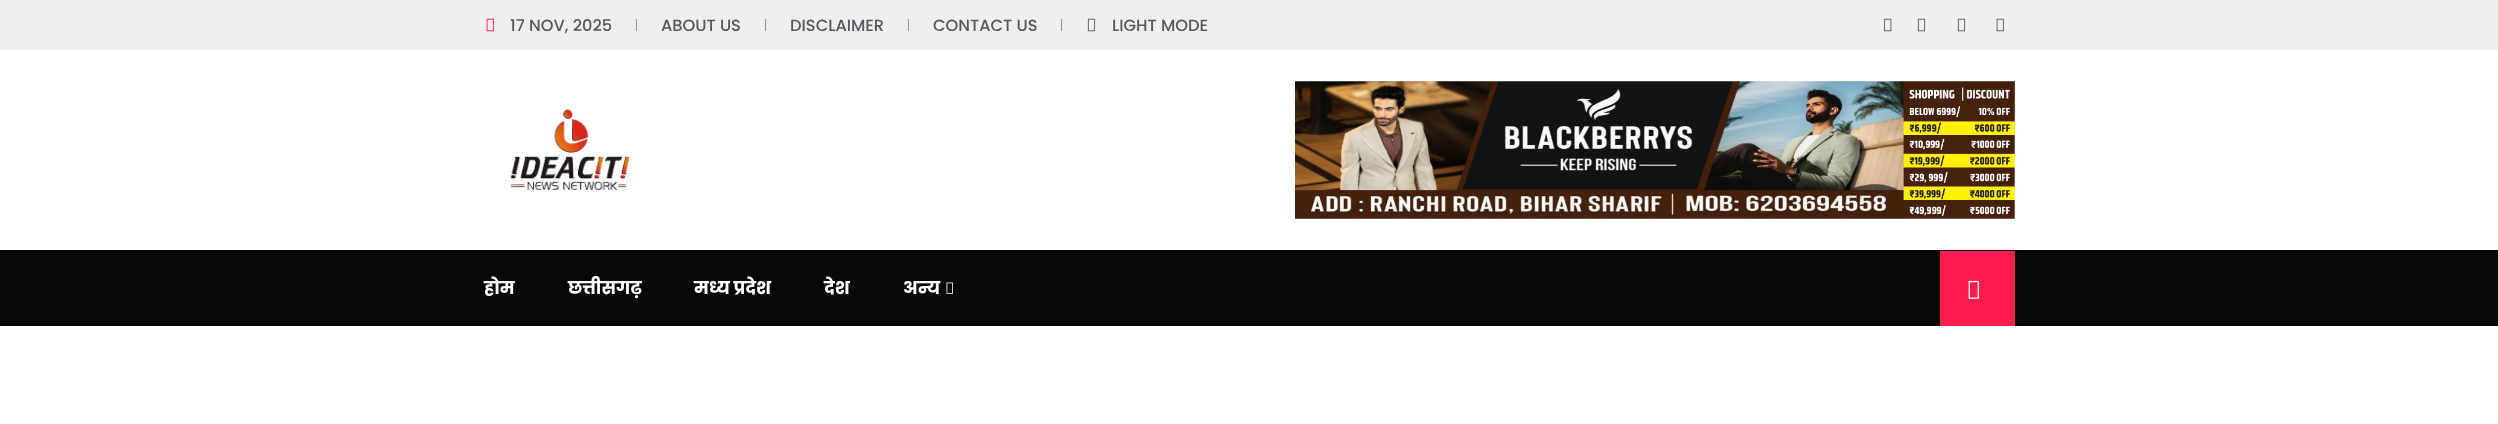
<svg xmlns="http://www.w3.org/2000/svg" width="2498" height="424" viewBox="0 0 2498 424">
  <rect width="100%" height="100%" fill="#ffffff"/>
  <rect x="0" y="0" width="2498" height="50" fill="#efefef"/>
  <image x="486" y="18" width="8" height="14" href="img1.png"/>
  <text x="510" y="31" font-family="Poppins" font-size="16.25" font-weight="500" fill="#54595f">17 NOV, 2025</text>
  <rect x="636" y="19" width="1" height="12" fill="#929599"/>
  <text x="661" y="31" font-family="Poppins" font-size="16.25" font-weight="500" fill="#54595f">ABOUT US</text>
  <rect x="765" y="19" width="1" height="12" fill="#929599"/>
  <text x="790" y="31" font-family="Poppins" font-size="16.25" font-weight="500" fill="#54595f">DISCLAIMER</text>
  <rect x="908" y="19" width="1" height="12" fill="#929599"/>
  <text x="933" y="31" font-family="Poppins" font-size="16.25" font-weight="500" fill="#54595f">CONTACT US</text>
  <rect x="1061" y="19" width="1" height="12" fill="#929599"/>
  <image x="1087" y="18" width="9" height="14" href="img2.png"/>
  <text x="1112" y="31" font-family="Poppins" font-size="16.25" font-weight="500" fill="#54595f">LIGHT MODE</text>
  <image x="1884" y="18" width="8" height="14" href="img3.png"/>
  <image x="1917" y="18" width="9" height="14" href="img2.png"/>
  <image x="1957" y="18" width="9" height="14" href="img2.png"/>
  <image x="1996" y="18" width="8" height="14" href="img4.png"/>
  <image x="510" y="109" width="120" height="81" href="img5.png"/>
  <image x="1295" y="81" width="720" height="138" href="img6.png"/>
  <rect x="0" y="250" width="2498" height="76" fill="#080809"/>
  <text x="484" y="294" font-family="Poppins" font-size="17.5" font-weight="bold" fill="#ffffff">होम</text>
  <text x="568" y="294" font-family="Poppins" font-size="17.5" font-weight="bold" fill="#ffffff">छत्तीसगढ़</text>
  <text x="694" y="294" font-family="Poppins" font-size="17.5" font-weight="bold" fill="#ffffff">मध्य प्रदेश</text>
  <text x="824" y="294" font-family="Poppins" font-size="17.5" font-weight="bold" fill="#ffffff">देश</text>
  <text x="903" y="294" font-family="Poppins" font-size="17.5" font-weight="bold" fill="#ffffff">अन्य</text>
  <image x="946" y="282" width="7" height="12" href="img7.png"/>
  <rect x="1940" y="251" width="75" height="75" fill="#ff1d50"/>
  <image x="1968" y="280" width="11" height="19" href="img8.png"/>
</svg>
